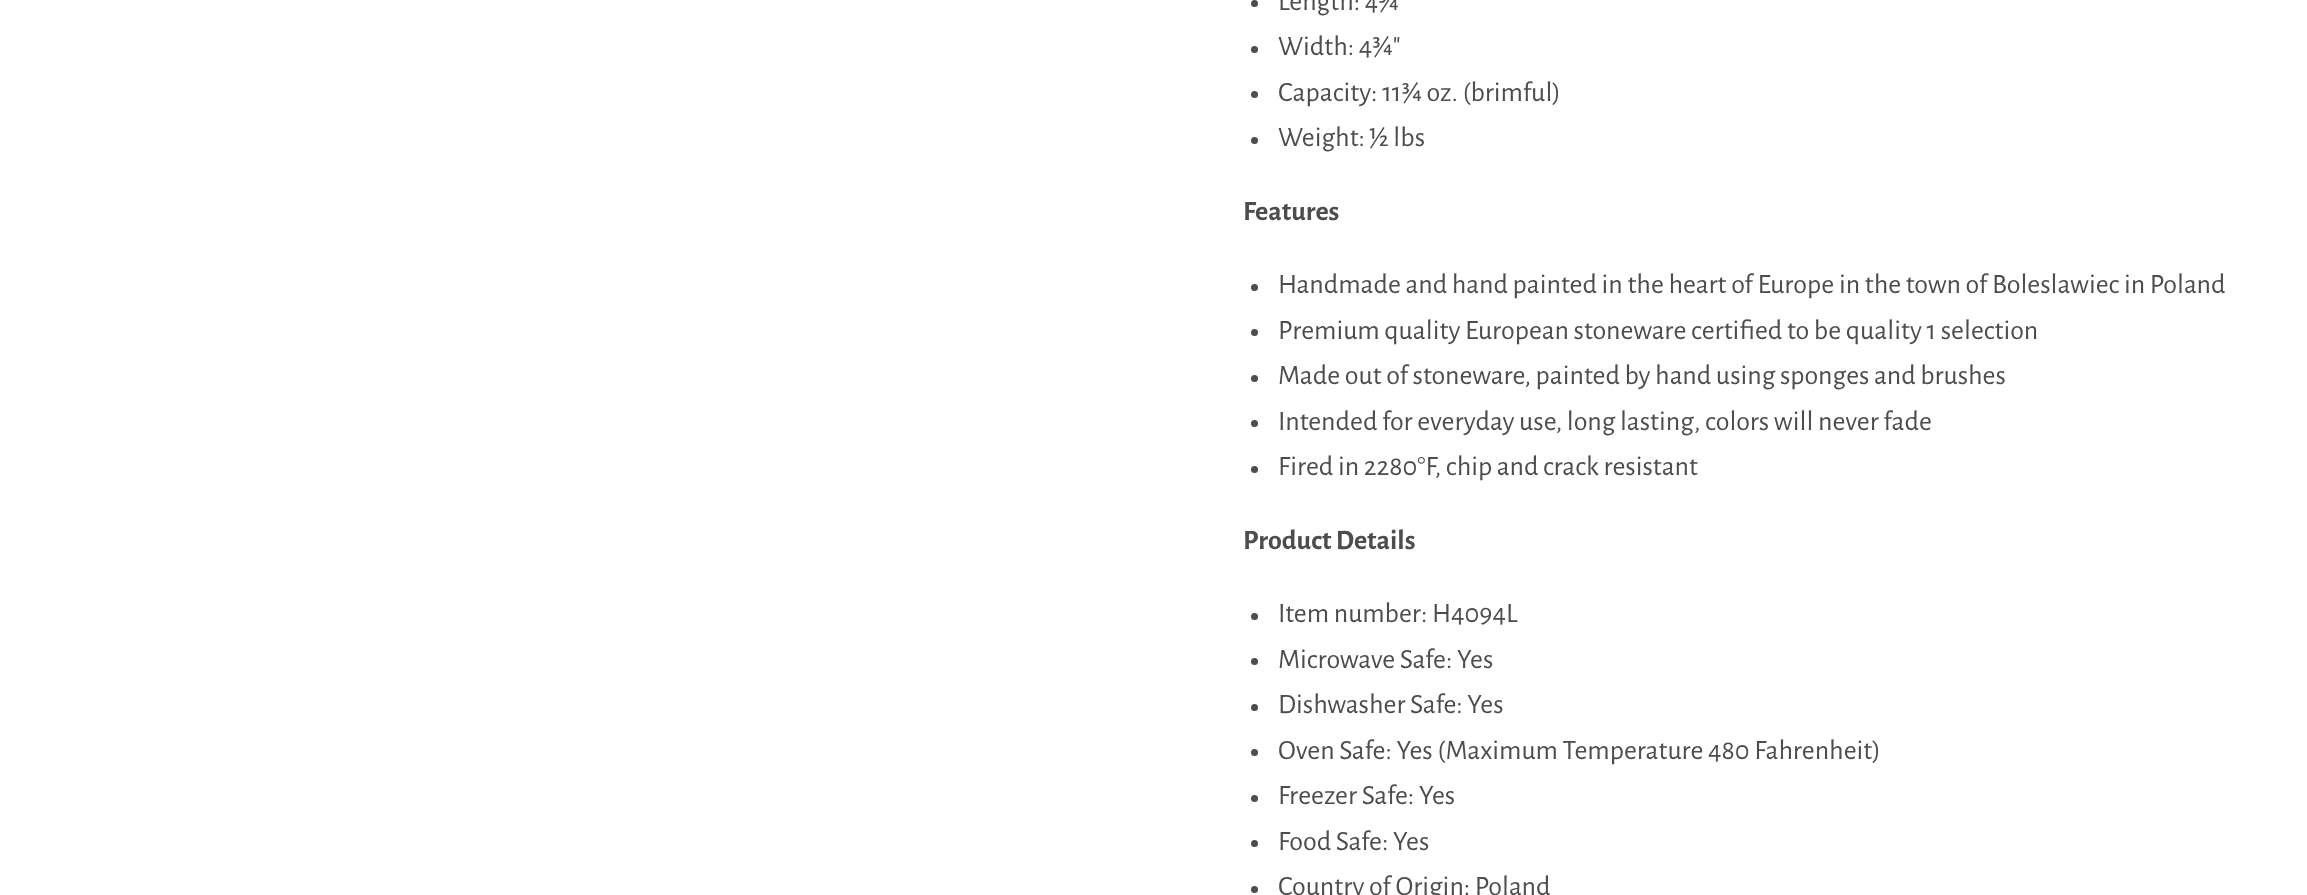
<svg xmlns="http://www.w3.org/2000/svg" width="2307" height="895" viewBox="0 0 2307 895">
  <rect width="100%" height="100%" fill="#ffffff"/>
  <circle cx="1254.5" cy="3.5" r="3.5" fill="#4d4d4d"/>
  <text x="1278" y="10" font-family="Alegreya Sans" font-size="28" fill="#4d4d4d">Length: 4¾</text>
  <circle cx="1254.5" cy="49.5" r="3.5" fill="#4d4d4d"/>
  <text x="1278" y="55" font-family="Alegreya Sans" font-size="28" fill="#4d4d4d">Width: 4¾"</text>
  <circle cx="1254.5" cy="94.5" r="3.5" fill="#4d4d4d"/>
  <text x="1278" y="101" font-family="Alegreya Sans" font-size="28" fill="#4d4d4d">Capacity: 11¾ oz. (brimful)</text>
  <circle cx="1254.5" cy="140.5" r="3.5" fill="#4d4d4d"/>
  <text x="1278" y="146" font-family="Alegreya Sans" font-size="28" fill="#4d4d4d">Weight: ½ lbs</text>
  <text x="1243" y="220" font-family="Alegreya Sans" font-size="28" font-weight="bold" fill="#4d4d4d">Features</text>
  <circle cx="1254.5" cy="287.5" r="3.5" fill="#4d4d4d"/>
  <text x="1278" y="293" font-family="Alegreya Sans" font-size="28" fill="#4d4d4d">Handmade and hand painted in the heart of Europe in the town of Boleslawiec in Poland</text>
  <circle cx="1254.5" cy="332.5" r="3.5" fill="#4d4d4d"/>
  <text x="1278" y="339" font-family="Alegreya Sans" font-size="28" fill="#4d4d4d">Premium quality European stoneware certified to be quality 1 selection</text>
  <circle cx="1254.5" cy="378.5" r="3.5" fill="#4d4d4d"/>
  <text x="1278" y="384" font-family="Alegreya Sans" font-size="28" fill="#4d4d4d">Made out of stoneware, painted by hand using sponges and brushes</text>
  <circle cx="1254.5" cy="423.5" r="3.5" fill="#4d4d4d"/>
  <text x="1278" y="430" font-family="Alegreya Sans" font-size="28" fill="#4d4d4d">Intended for everyday use, long lasting, colors will never fade</text>
  <circle cx="1254.5" cy="469.5" r="3.5" fill="#4d4d4d"/>
  <text x="1278" y="475" font-family="Alegreya Sans" font-size="28" fill="#4d4d4d">Fired in 2280°F, chip and crack resistant</text>
  <text x="1243" y="549" font-family="Alegreya Sans" font-size="28" font-weight="bold" fill="#4d4d4d">Product Details</text>
  <circle cx="1254.5" cy="616.5" r="3.5" fill="#4d4d4d"/>
  <text x="1278" y="622" font-family="Alegreya Sans" font-size="28" fill="#4d4d4d">Item number: H4094L</text>
  <circle cx="1254.5" cy="661.5" r="3.5" fill="#4d4d4d"/>
  <text x="1278" y="668" font-family="Alegreya Sans" font-size="28" fill="#4d4d4d">Microwave Safe: Yes</text>
  <circle cx="1254.5" cy="707.5" r="3.5" fill="#4d4d4d"/>
  <text x="1278" y="713" font-family="Alegreya Sans" font-size="28" fill="#4d4d4d">Dishwasher Safe: Yes</text>
  <circle cx="1254.5" cy="752.5" r="3.5" fill="#4d4d4d"/>
  <text x="1278" y="759" font-family="Alegreya Sans" font-size="28" fill="#4d4d4d">Oven Safe: Yes (Maximum Temperature 480 Fahrenheit)</text>
  <circle cx="1254.5" cy="798.5" r="3.5" fill="#4d4d4d"/>
  <text x="1278" y="804" font-family="Alegreya Sans" font-size="28" fill="#4d4d4d">Freezer Safe: Yes</text>
  <circle cx="1254.5" cy="843.5" r="3.5" fill="#4d4d4d"/>
  <text x="1278" y="850" font-family="Alegreya Sans" font-size="28" fill="#4d4d4d">Food Safe: Yes</text>
  <circle cx="1254.5" cy="889.5" r="3.5" fill="#4d4d4d"/>
  <text x="1278" y="895" font-family="Alegreya Sans" font-size="28" fill="#4d4d4d">Country of Origin: Poland</text>
</svg>
